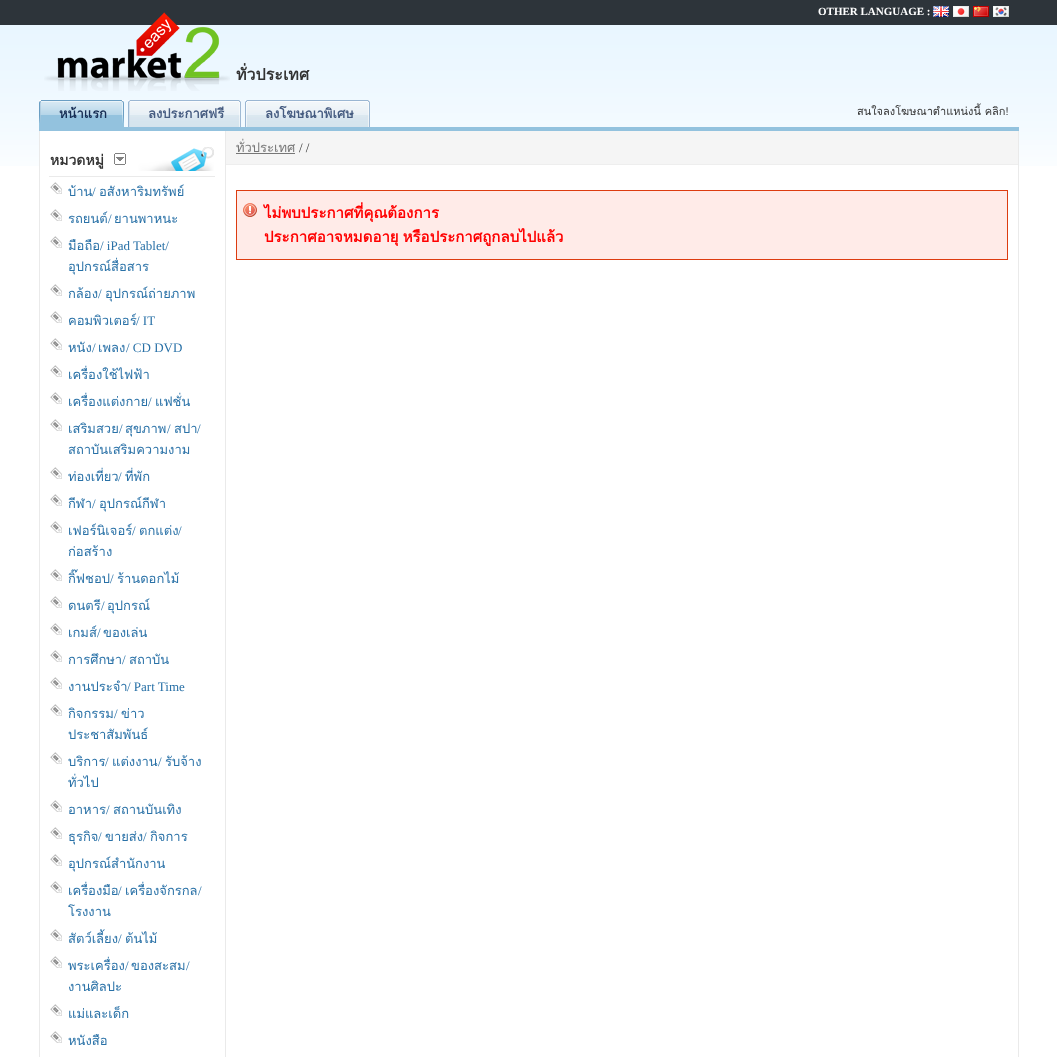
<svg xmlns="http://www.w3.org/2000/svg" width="1057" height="1057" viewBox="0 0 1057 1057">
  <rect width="100%" height="100%" fill="#ffffff"/>
  <image x="0" y="0" width="1057" height="166" href="img1.png"/>
  <text x="818" y="15" font-family="Liberation Serif" font-size="11" font-weight="bold" fill="#ffffff">OTHER LANGUAGE :</text>
  <image x="933" y="6" width="16" height="11" href="img2.png"/>
  <image x="953" y="6" width="16" height="11" href="img3.png"/>
  <image x="973" y="6" width="16" height="11" href="img4.png"/>
  <image x="993" y="6" width="16" height="11" href="img5.png"/>
  <rect x="39" y="127" width="980" height="4" fill="#93c2de"/>
  <rect x="39" y="123" width="85" height="4" fill="#93c2de"/>
  <image x="39" y="100" width="2" height="23" href="img6.png"/>
  <image x="41" y="100" width="83" height="23" href="img7.png"/>
  <text x="59" y="118" font-family="Loma" font-size="13" font-weight="bold" fill="#172e54">หน้าแรก</text>
  <image x="128" y="100" width="2" height="27" href="img8.png"/>
  <image x="130" y="100" width="111" height="27" href="img9.png"/>
  <text x="148" y="118" font-family="Loma" font-size="13" font-weight="bold" fill="#455b80">ลงประกาศฟรี</text>
  <image x="245" y="100" width="2" height="27" href="img10.png"/>
  <image x="247" y="100" width="123" height="27" href="img11.png"/>
  <text x="265" y="118" font-family="Loma" font-size="13" font-weight="bold" fill="#455b80">ลงโฆษณาพิเศษ</text>
  <image x="44" y="12" width="186" height="79" href="img12.png"/>
  <text x="236" y="80" font-family="Loma" font-size="16" font-weight="bold" fill="#333333">ทั่วประเทศ</text>
  <text x="857" y="115" font-family="Loma" font-size="11" fill="#333333">สนใจลงโฆษณาตำแหน่งนี้ คลิก!</text>
  <rect x="40" y="131" width="185" height="35" fill="#ffffff"/>
  <rect x="39" y="131" width="1" height="926" fill="#eaeaea"/>
  <image x="114" y="147" width="100" height="24" href="img13.png"/>
  <rect x="49" y="176" width="166" height="1" fill="#eaeaea"/>
  <text x="50" y="165" font-family="Loma" font-size="14" font-weight="bold" fill="#333333">หมวดหมู่</text>
  <image x="50" y="182" width="12" height="12" href="img14.png"/>
  <text x="68" y="196" font-family="Loma" font-size="13" fill="#2971a7">บ้าน</text>
  <text x="92" y="196" font-family="Liberation Serif" font-size="13" fill="#2971a7">/</text>
  <text x="99" y="196" font-family="Loma" font-size="13" fill="#2971a7">อสังหาริมทรัพย์</text>
  <image x="50" y="209" width="12" height="12" href="img14.png"/>
  <text x="68" y="223" font-family="Loma" font-size="13" fill="#2971a7">รถยนต์</text>
  <text x="108" y="223" font-family="Liberation Serif" font-size="13" fill="#2971a7">/</text>
  <text x="114" y="223" font-family="Loma" font-size="13" fill="#2971a7">ยานพาหนะ</text>
  <image x="50" y="236" width="12" height="12" href="img14.png"/>
  <text x="68" y="250" font-family="Loma" font-size="13" fill="#2971a7">มือถือ</text>
  <text x="100" y="250" font-family="Liberation Serif" font-size="13" fill="#2971a7">/ iPad Tablet/</text>
  <text x="68" y="271" font-family="Loma" font-size="13" fill="#2971a7">อุปกรณ์สื่อสาร</text>
  <image x="50" y="284" width="12" height="12" href="img14.png"/>
  <text x="68" y="298" font-family="Loma" font-size="13" fill="#2971a7">กล้อง</text>
  <text x="98" y="298" font-family="Liberation Serif" font-size="13" fill="#2971a7">/</text>
  <text x="105" y="298" font-family="Loma" font-size="13" fill="#2971a7">อุปกรณ์ถ่ายภาพ</text>
  <image x="50" y="311" width="12" height="12" href="img14.png"/>
  <text x="68" y="325" font-family="Loma" font-size="13" fill="#2971a7">คอมพิวเตอร์</text>
  <text x="136" y="325" font-family="Liberation Serif" font-size="13" fill="#2971a7">/ IT</text>
  <image x="50" y="338" width="12" height="12" href="img14.png"/>
  <text x="68" y="352" font-family="Loma" font-size="13" fill="#2971a7">หนัง</text>
  <text x="92" y="352" font-family="Liberation Serif" font-size="13" fill="#2971a7">/</text>
  <text x="98" y="352" font-family="Loma" font-size="13" fill="#2971a7">เพลง</text>
  <text x="126" y="352" font-family="Liberation Serif" font-size="13" fill="#2971a7">/ CD DVD</text>
  <image x="50" y="365" width="12" height="12" href="img14.png"/>
  <text x="68" y="379" font-family="Loma" font-size="13" fill="#2971a7">เครื่องใช้ไฟฟ้า</text>
  <image x="50" y="392" width="12" height="12" href="img14.png"/>
  <text x="68" y="406" font-family="Loma" font-size="13" fill="#2971a7">เครื่องแต่งกาย</text>
  <text x="148" y="406" font-family="Liberation Serif" font-size="13" fill="#2971a7">/</text>
  <text x="155" y="406" font-family="Loma" font-size="13" fill="#2971a7">แฟชั่น</text>
  <image x="50" y="419" width="12" height="12" href="img14.png"/>
  <text x="68" y="433" font-family="Loma" font-size="13" fill="#2971a7">เสริมสวย</text>
  <text x="119" y="433" font-family="Liberation Serif" font-size="13" fill="#2971a7">/</text>
  <text x="125" y="433" font-family="Loma" font-size="13" fill="#2971a7">สุขภาพ</text>
  <text x="167" y="433" font-family="Liberation Serif" font-size="13" fill="#2971a7">/</text>
  <text x="174" y="433" font-family="Loma" font-size="13" fill="#2971a7">สปา</text>
  <text x="197" y="433" font-family="Liberation Serif" font-size="13" fill="#2971a7">/</text>
  <text x="68" y="454" font-family="Loma" font-size="13" fill="#2971a7">สถาบันเสริมความงาม</text>
  <image x="50" y="467" width="12" height="12" href="img14.png"/>
  <text x="68" y="481" font-family="Loma" font-size="13" fill="#2971a7">ท่องเที่ยว</text>
  <text x="118" y="481" font-family="Liberation Serif" font-size="13" fill="#2971a7">/</text>
  <text x="125" y="481" font-family="Loma" font-size="13" fill="#2971a7">ที่พัก</text>
  <image x="50" y="494" width="12" height="12" href="img14.png"/>
  <text x="68" y="508" font-family="Loma" font-size="13" fill="#2971a7">กีฬา</text>
  <text x="92" y="508" font-family="Liberation Serif" font-size="13" fill="#2971a7">/</text>
  <text x="99" y="508" font-family="Loma" font-size="13" fill="#2971a7">อุปกรณ์กีฬา</text>
  <image x="50" y="521" width="12" height="12" href="img14.png"/>
  <text x="68" y="535" font-family="Loma" font-size="13" fill="#2971a7">เฟอร์นิเจอร์</text>
  <text x="132" y="535" font-family="Liberation Serif" font-size="13" fill="#2971a7">/</text>
  <text x="139" y="535" font-family="Loma" font-size="13" fill="#2971a7">ตกแต่ง</text>
  <text x="178" y="535" font-family="Liberation Serif" font-size="13" fill="#2971a7">/</text>
  <text x="68" y="556" font-family="Loma" font-size="13" fill="#2971a7">ก่อสร้าง</text>
  <image x="50" y="569" width="12" height="12" href="img14.png"/>
  <text x="68" y="583" font-family="Loma" font-size="13" fill="#2971a7">กิ๊ฟชอป</text>
  <text x="110" y="583" font-family="Liberation Serif" font-size="13" fill="#2971a7">/</text>
  <text x="117" y="583" font-family="Loma" font-size="13" fill="#2971a7">ร้านดอกไม้</text>
  <image x="50" y="596" width="12" height="12" href="img14.png"/>
  <text x="68" y="610" font-family="Loma" font-size="13" fill="#2971a7">ดนตรี</text>
  <text x="101" y="610" font-family="Liberation Serif" font-size="13" fill="#2971a7">/</text>
  <text x="107" y="610" font-family="Loma" font-size="13" fill="#2971a7">อุปกรณ์</text>
  <image x="50" y="623" width="12" height="12" href="img14.png"/>
  <text x="68" y="637" font-family="Loma" font-size="13" fill="#2971a7">เกมส์</text>
  <text x="97" y="637" font-family="Liberation Serif" font-size="13" fill="#2971a7">/</text>
  <text x="103" y="637" font-family="Loma" font-size="13" fill="#2971a7">ของเล่น</text>
  <image x="50" y="650" width="12" height="12" href="img14.png"/>
  <text x="68" y="664" font-family="Loma" font-size="13" fill="#2971a7">การศึกษา</text>
  <text x="122" y="664" font-family="Liberation Serif" font-size="13" fill="#2971a7">/</text>
  <text x="129" y="664" font-family="Loma" font-size="13" fill="#2971a7">สถาบัน</text>
  <image x="50" y="677" width="12" height="12" href="img14.png"/>
  <text x="68" y="691" font-family="Loma" font-size="13" fill="#2971a7">งานประจำ</text>
  <text x="127" y="691" font-family="Liberation Serif" font-size="13" fill="#2971a7">/ Part Time</text>
  <image x="50" y="704" width="12" height="12" href="img14.png"/>
  <text x="68" y="718" font-family="Loma" font-size="13" fill="#2971a7">กิจกรรม</text>
  <text x="114" y="718" font-family="Liberation Serif" font-size="13" fill="#2971a7">/</text>
  <text x="121" y="718" font-family="Loma" font-size="13" fill="#2971a7">ข่าว</text>
  <text x="68" y="739" font-family="Loma" font-size="13" fill="#2971a7">ประชาสัมพันธ์</text>
  <image x="50" y="752" width="12" height="12" href="img14.png"/>
  <text x="68" y="766" font-family="Loma" font-size="13" fill="#2971a7">บริการ</text>
  <text x="105" y="766" font-family="Liberation Serif" font-size="13" fill="#2971a7">/</text>
  <text x="112" y="766" font-family="Loma" font-size="13" fill="#2971a7">แต่งงาน</text>
  <text x="158" y="766" font-family="Liberation Serif" font-size="13" fill="#2971a7">/</text>
  <text x="165" y="766" font-family="Loma" font-size="13" fill="#2971a7">รับจ้าง</text>
  <text x="68" y="787" font-family="Loma" font-size="13" fill="#2971a7">ทั่วไป</text>
  <image x="50" y="800" width="12" height="12" href="img14.png"/>
  <text x="68" y="814" font-family="Loma" font-size="13" fill="#2971a7">อาหาร</text>
  <text x="106" y="814" font-family="Liberation Serif" font-size="13" fill="#2971a7">/</text>
  <text x="113" y="814" font-family="Loma" font-size="13" fill="#2971a7">สถานบันเทิง</text>
  <image x="50" y="827" width="12" height="12" href="img14.png"/>
  <text x="68" y="841" font-family="Loma" font-size="13" fill="#2971a7">ธุรกิจ</text>
  <text x="98" y="841" font-family="Liberation Serif" font-size="13" fill="#2971a7">/</text>
  <text x="105" y="841" font-family="Loma" font-size="13" fill="#2971a7">ขายส่ง</text>
  <text x="143" y="841" font-family="Liberation Serif" font-size="13" fill="#2971a7">/</text>
  <text x="150" y="841" font-family="Loma" font-size="13" fill="#2971a7">กิจการ</text>
  <image x="50" y="854" width="12" height="12" href="img14.png"/>
  <text x="68" y="868" font-family="Loma" font-size="13" fill="#2971a7">อุปกรณ์สำนักงาน</text>
  <image x="50" y="881" width="12" height="12" href="img14.png"/>
  <text x="68" y="895" font-family="Loma" font-size="13" fill="#2971a7">เครื่องมือ</text>
  <text x="118" y="895" font-family="Liberation Serif" font-size="13" fill="#2971a7">/</text>
  <text x="125" y="895" font-family="Loma" font-size="13" fill="#2971a7">เครื่องจักรกล</text>
  <text x="198" y="895" font-family="Liberation Serif" font-size="13" fill="#2971a7">/</text>
  <text x="68" y="916" font-family="Loma" font-size="13" fill="#2971a7">โรงงาน</text>
  <image x="50" y="929" width="12" height="12" href="img14.png"/>
  <text x="68" y="943" font-family="Loma" font-size="13" fill="#2971a7">สัตว์เลี้ยง</text>
  <text x="118" y="943" font-family="Liberation Serif" font-size="13" fill="#2971a7">/</text>
  <text x="125" y="943" font-family="Loma" font-size="13" fill="#2971a7">ต้นไม้</text>
  <image x="50" y="956" width="12" height="12" href="img14.png"/>
  <text x="68" y="970" font-family="Loma" font-size="13" fill="#2971a7">พระเครื่อง</text>
  <text x="125" y="970" font-family="Liberation Serif" font-size="13" fill="#2971a7">/</text>
  <text x="131" y="970" font-family="Loma" font-size="13" fill="#2971a7">ของสะสม</text>
  <text x="186" y="970" font-family="Liberation Serif" font-size="13" fill="#2971a7">/</text>
  <text x="68" y="991" font-family="Loma" font-size="13" fill="#2971a7">งานศิลปะ</text>
  <image x="50" y="1004" width="12" height="12" href="img14.png"/>
  <text x="68" y="1018" font-family="Loma" font-size="13" fill="#2971a7">แม่และเด็ก</text>
  <image x="50" y="1031" width="12" height="12" href="img14.png"/>
  <text x="68" y="1045" font-family="Loma" font-size="13" fill="#2971a7">หนังสือ</text>
  <rect x="226" y="165" width="792" height="1" fill="#ffffff"/>
  <rect x="1018" y="131" width="1" height="926" fill="#eaeaea"/>
  <rect x="225" y="131" width="1" height="926" fill="#eaeaea"/>
  <rect x="226" y="131" width="792" height="33" fill="#f5f5f5"/>
  <rect x="226" y="164" width="792" height="1" fill="#eeeeee"/>
  <text x="236" y="152" font-family="Loma" font-size="13" fill="#777777">ทั่วประเทศ</text>
  <rect x="236" y="153" width="59" height="1" fill="#777777"/>
  <text x="299" y="152" font-family="Liberation Serif" font-size="13" fill="#333333">/ /</text>
  <rect x="237" y="191" width="770" height="68" fill="#ffebe8"/>
  <image x="243" y="203" width="14" height="14" href="img15.png"/>
  <rect x="236.5" y="190.5" width="771" height="69" fill="none" stroke="#dd3c10"/>
  <text x="264" y="218" font-family="Loma" font-size="15" font-weight="bold" fill="#ff0000">ไม่พบประกาศที่คุณต้องการ</text>
  <text x="264" y="242" word-spacing="-1" font-family="Loma" font-size="15" font-weight="bold" fill="#ff0000">ประกาศอาจหมดอายุ หรือประกาศถูกลบไปแล้ว</text>
</svg>
